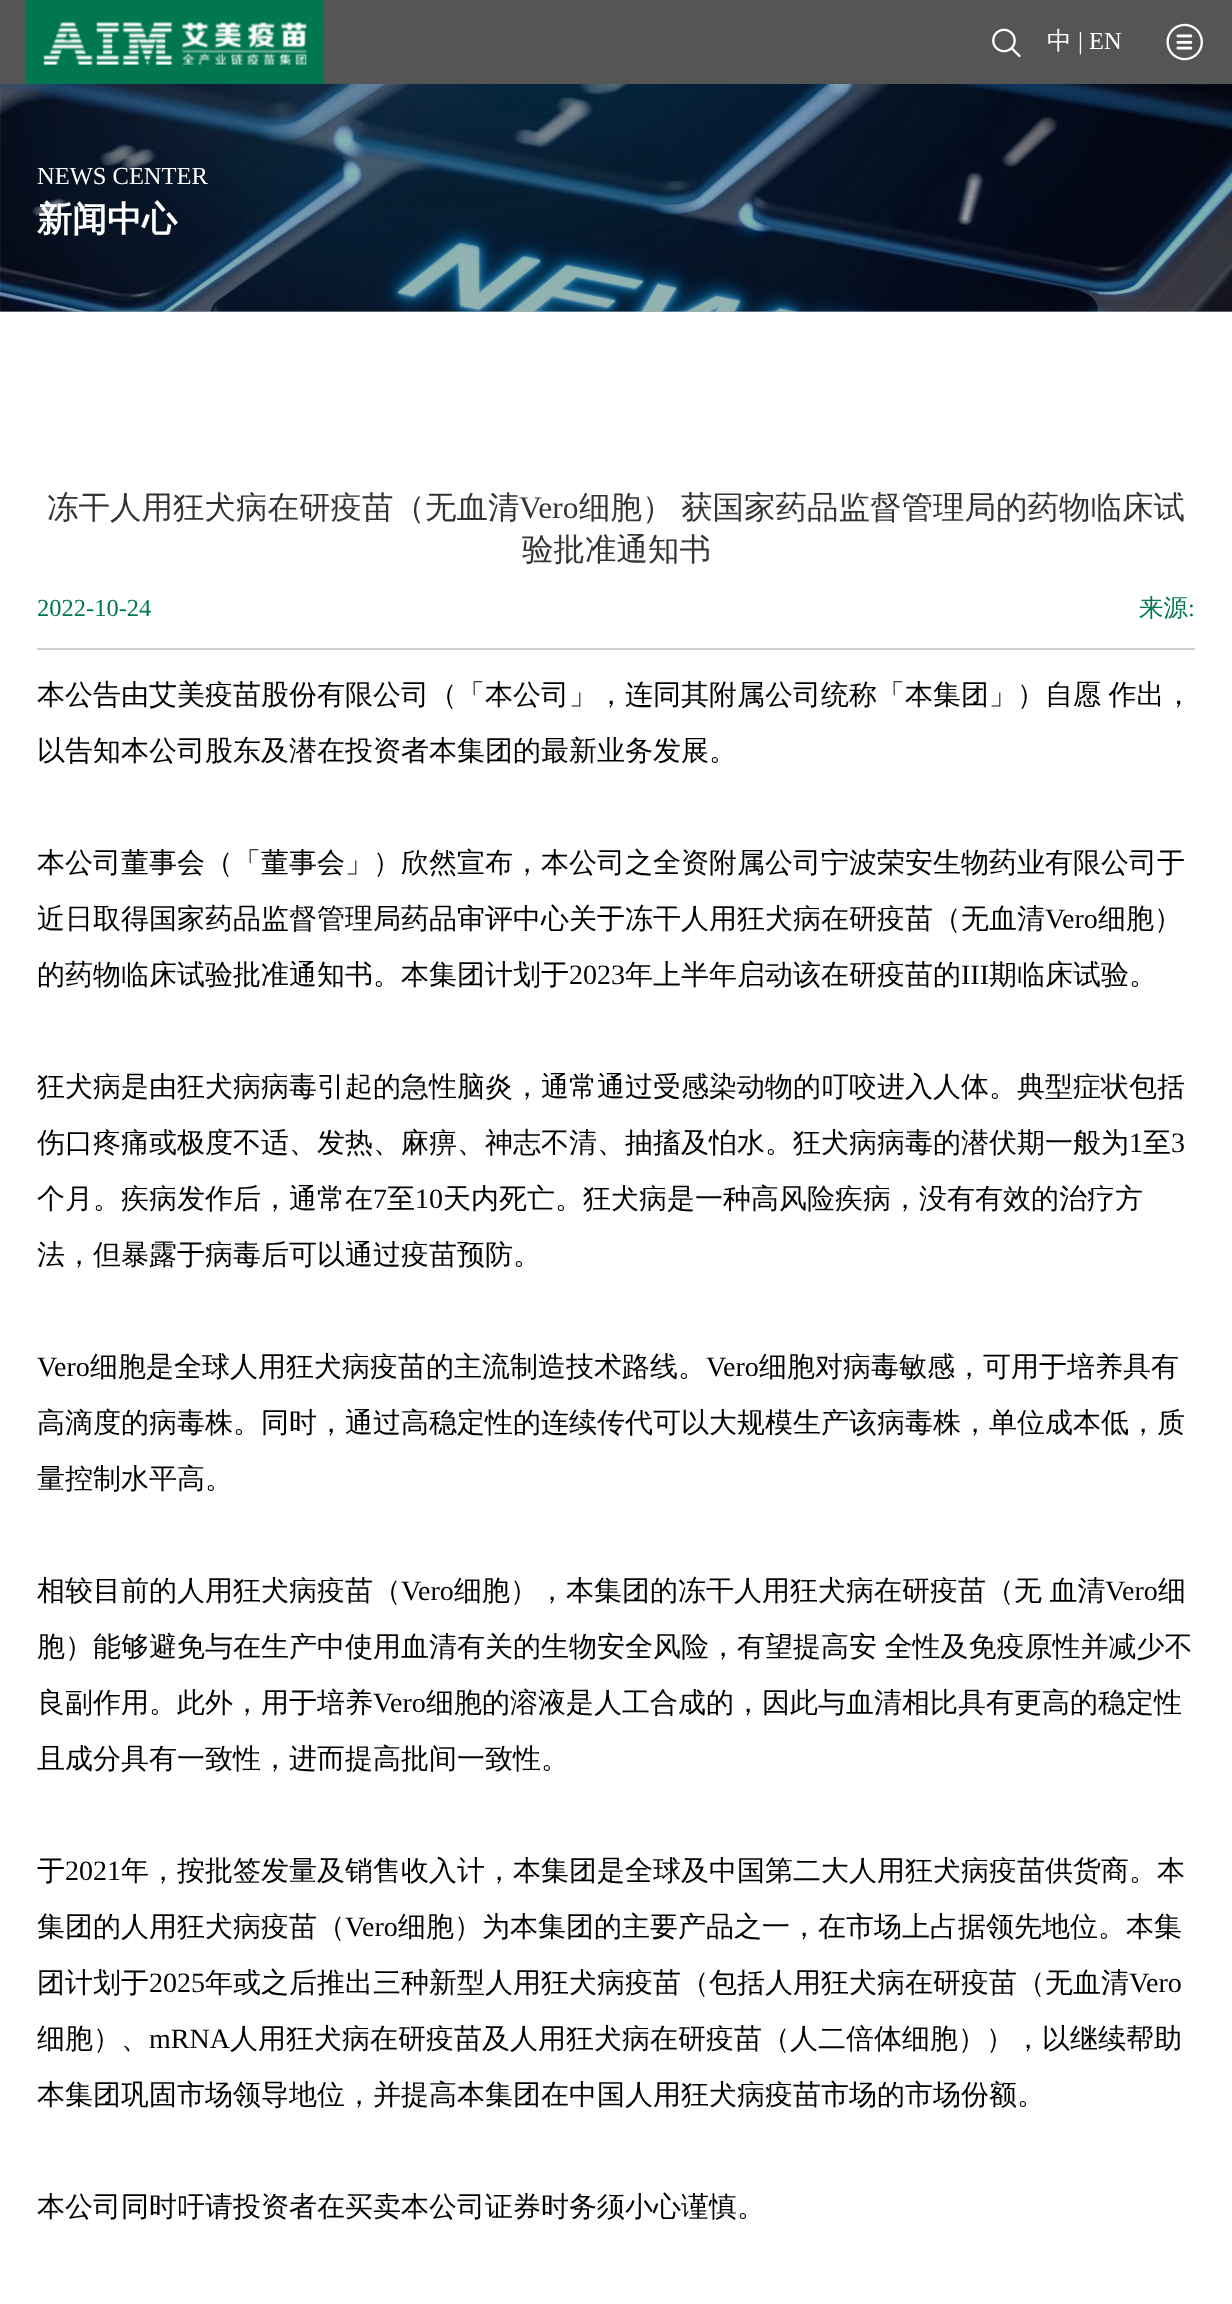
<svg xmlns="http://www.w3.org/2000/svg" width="1232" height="2304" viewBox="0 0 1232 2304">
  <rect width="100%" height="100%" fill="#ffffff"/>
  <rect x="0" y="311" width="1232" height="1" fill="#b3b3b3"/>
  <rect x="0" y="0" width="1232" height="84" fill="#555555"/>
  <rect x="26" y="0" width="298" height="84" fill="#007750"/>
  <image x="43" y="22" width="264" height="43" href="img1.png"/>
  <image x="992" y="28" width="29" height="30" href="img2.png"/>
  <text x="1047" y="49" font-family="WenQuanYi Zen Hei" font-size="24.5" font-weight="500" fill="#ffffff">中</text>
  <text x="1078" y="49" font-family="Liberation Serif" font-size="24.5" fill="#ffffff">| EN</text>
  <image x="1166" y="23" width="37" height="38" href="img3.png"/>
  <image x="0" y="84" width="1232" height="228" href="img4.png"/>
  <text x="37" y="184" font-family="Liberation Serif" font-size="24.5" fill="#ffffff">NEWS CENTER</text>
  <text x="37" y="231" font-family="WenQuanYi Zen Hei" font-size="35" font-weight="bold" fill="#ffffff">新闻中心</text>
  <rect x="37" y="648" width="1158" height="2" fill="#cfcdcd"/>
  <text x="47" y="518" font-family="WenQuanYi Zen Hei" font-size="31.5" font-weight="500" fill="#333333">冻干人用狂犬病在研疫苗（无血清</text>
  <text x="519" y="518" font-family="Liberation Serif" font-size="31.5" fill="#333333">Vero</text>
  <text x="579" y="518" word-spacing="-2" font-family="WenQuanYi Zen Hei" font-size="31.5" font-weight="500" fill="#333333">细胞） 获国家药品监督管理局的药物临床试</text>
  <text x="522" y="560" font-family="WenQuanYi Zen Hei" font-size="31.5" font-weight="500" fill="#333333">验批准通知书</text>
  <text x="37" y="616" font-family="Liberation Serif" font-size="24.5" fill="#007750">2022-10-24</text>
  <text x="1139" y="616" font-family="WenQuanYi Zen Hei" font-size="24.5" font-weight="500" fill="#007750">来源</text>
  <text x="1188" y="616" font-family="Liberation Serif" font-size="24.5" fill="#007750">:</text>
  <text x="37" y="704" word-spacing="-1" font-family="WenQuanYi Zen Hei" font-size="28" font-weight="500" fill="#000000">本公告由艾美疫苗股份有限公司（「本公司」，连同其附属公司统称「本集团」）自愿 作出，</text>
  <text x="37" y="760" font-family="WenQuanYi Zen Hei" font-size="28" font-weight="500" fill="#000000">以告知本公司股东及潜在投资者本集团的最新业务发展。</text>
  <text x="37" y="872" font-family="WenQuanYi Zen Hei" font-size="28" font-weight="500" fill="#000000">本公司董事会（「董事会」）欣然宣布，本公司之全资附属公司宁波荣安生物药业有限公司于</text>
  <text x="37" y="928" font-family="WenQuanYi Zen Hei" font-size="28" font-weight="500" fill="#000000">近日取得国家药品监督管理局药品审评中心关于冻干人用狂犬病在研疫苗（无血清</text>
  <text x="1045" y="928" font-family="Liberation Serif" font-size="28" fill="#000000">Vero</text>
  <text x="1098" y="928" font-family="WenQuanYi Zen Hei" font-size="28" font-weight="500" fill="#000000">细胞）</text>
  <text x="37" y="984" font-family="WenQuanYi Zen Hei" font-size="28" font-weight="500" fill="#000000">的药物临床试验批准通知书。本集团计划于</text>
  <text x="569" y="984" font-family="Liberation Serif" font-size="28" fill="#000000">2023</text>
  <text x="625" y="984" font-family="WenQuanYi Zen Hei" font-size="28" font-weight="500" fill="#000000">年上半年启动该在研疫苗的</text>
  <text x="961" y="984" font-family="Liberation Serif" font-size="28" fill="#000000">III</text>
  <text x="989" y="984" font-family="WenQuanYi Zen Hei" font-size="28" font-weight="500" fill="#000000">期临床试验。</text>
  <text x="37" y="1096" font-family="WenQuanYi Zen Hei" font-size="28" font-weight="500" fill="#000000">狂犬病是由狂犬病病毒引起的急性脑炎，通常通过受感染动物的叮咬进入人体。典型症状包括</text>
  <text x="37" y="1152" font-family="WenQuanYi Zen Hei" font-size="28" font-weight="500" fill="#000000">伤口疼痛或极度不适、发热、麻痹、神志不清、抽搐及怕水。狂犬病病毒的潜伏期一般为</text>
  <text x="1129" y="1152" font-family="Liberation Serif" font-size="28" fill="#000000">1</text>
  <text x="1143" y="1152" font-family="WenQuanYi Zen Hei" font-size="28" font-weight="500" fill="#000000">至</text>
  <text x="1171" y="1152" font-family="Liberation Serif" font-size="28" fill="#000000">3</text>
  <text x="37" y="1208" font-family="WenQuanYi Zen Hei" font-size="28" font-weight="500" fill="#000000">个月。疾病发作后，通常在</text>
  <text x="373" y="1208" font-family="Liberation Serif" font-size="28" fill="#000000">7</text>
  <text x="387" y="1208" font-family="WenQuanYi Zen Hei" font-size="28" font-weight="500" fill="#000000">至</text>
  <text x="415" y="1208" font-family="Liberation Serif" font-size="28" fill="#000000">10</text>
  <text x="443" y="1208" font-family="WenQuanYi Zen Hei" font-size="28" font-weight="500" fill="#000000">天内死亡。狂犬病是一种高风险疾病，没有有效的治疗方</text>
  <text x="37" y="1264" font-family="WenQuanYi Zen Hei" font-size="28" font-weight="500" fill="#000000">法，但暴露于病毒后可以通过疫苗预防。</text>
  <text x="37" y="1376" font-family="Liberation Serif" font-size="28" fill="#000000">Vero</text>
  <text x="90" y="1376" font-family="WenQuanYi Zen Hei" font-size="28" font-weight="500" fill="#000000">细胞是全球人用狂犬病疫苗的主流制造技术路线。</text>
  <text x="706" y="1376" font-family="Liberation Serif" font-size="28" fill="#000000">Vero</text>
  <text x="759" y="1376" font-family="WenQuanYi Zen Hei" font-size="28" font-weight="500" fill="#000000">细胞对病毒敏感，可用于培养具有</text>
  <text x="37" y="1432" font-family="WenQuanYi Zen Hei" font-size="28" font-weight="500" fill="#000000">高滴度的病毒株。同时，通过高稳定性的连续传代可以大规模生产该病毒株，单位成本低，质</text>
  <text x="37" y="1488" font-family="WenQuanYi Zen Hei" font-size="28" font-weight="500" fill="#000000">量控制水平高。</text>
  <text x="37" y="1600" font-family="WenQuanYi Zen Hei" font-size="28" font-weight="500" fill="#000000">相较目前的人用狂犬病疫苗（</text>
  <text x="401" y="1600" font-family="Liberation Serif" font-size="28" fill="#000000">Vero</text>
  <text x="454" y="1600" word-spacing="-1" font-family="WenQuanYi Zen Hei" font-size="28" font-weight="500" fill="#000000">细胞），本集团的冻干人用狂犬病在研疫苗（无 血清</text>
  <text x="1105" y="1600" font-family="Liberation Serif" font-size="28" fill="#000000">Vero</text>
  <text x="1158" y="1600" font-family="WenQuanYi Zen Hei" font-size="28" font-weight="500" fill="#000000">细</text>
  <text x="37" y="1656" word-spacing="-1" font-family="WenQuanYi Zen Hei" font-size="28" font-weight="500" fill="#000000">胞）能够避免与在生产中使用血清有关的生物安全风险，有望提高安 全性及免疫原性并减少不</text>
  <text x="37" y="1712" font-family="WenQuanYi Zen Hei" font-size="28" font-weight="500" fill="#000000">良副作用。此外，用于培养</text>
  <text x="373" y="1712" font-family="Liberation Serif" font-size="28" fill="#000000">Vero</text>
  <text x="426" y="1712" font-family="WenQuanYi Zen Hei" font-size="28" font-weight="500" fill="#000000">细胞的溶液是人工合成的，因此与血清相比具有更高的稳定性</text>
  <text x="37" y="1768" font-family="WenQuanYi Zen Hei" font-size="28" font-weight="500" fill="#000000">且成分具有一致性，进而提高批间一致性。</text>
  <text x="37" y="1880" font-family="WenQuanYi Zen Hei" font-size="28" font-weight="500" fill="#000000">于</text>
  <text x="65" y="1880" font-family="Liberation Serif" font-size="28" fill="#000000">2021</text>
  <text x="121" y="1880" font-family="WenQuanYi Zen Hei" font-size="28" font-weight="500" fill="#000000">年，按批签发量及销售收入计，本集团是全球及中国第二大人用狂犬病疫苗供货商。本</text>
  <text x="37" y="1936" font-family="WenQuanYi Zen Hei" font-size="28" font-weight="500" fill="#000000">集团的人用狂犬病疫苗（</text>
  <text x="345" y="1936" font-family="Liberation Serif" font-size="28" fill="#000000">Vero</text>
  <text x="398" y="1936" font-family="WenQuanYi Zen Hei" font-size="28" font-weight="500" fill="#000000">细胞）为本集团的主要产品之一，在市场上占据领先地位。本集</text>
  <text x="37" y="1992" font-family="WenQuanYi Zen Hei" font-size="28" font-weight="500" fill="#000000">团计划于</text>
  <text x="149" y="1992" font-family="Liberation Serif" font-size="28" fill="#000000">2025</text>
  <text x="205" y="1992" font-family="WenQuanYi Zen Hei" font-size="28" font-weight="500" fill="#000000">年或之后推出三种新型人用狂犬病疫苗（包括人用狂犬病在研疫苗（无血清</text>
  <text x="1129" y="1992" font-family="Liberation Serif" font-size="28" fill="#000000">Vero</text>
  <text x="37" y="2048" font-family="WenQuanYi Zen Hei" font-size="28" font-weight="500" fill="#000000">细胞）、</text>
  <text x="149" y="2048" font-family="Liberation Serif" font-size="28" fill="#000000">mRNA</text>
  <text x="230" y="2048" font-family="WenQuanYi Zen Hei" font-size="28" font-weight="500" fill="#000000">人用狂犬病在研疫苗及人用狂犬病在研疫苗（人二倍体细胞）），以继续帮助</text>
  <text x="37" y="2104" font-family="WenQuanYi Zen Hei" font-size="28" font-weight="500" fill="#000000">本集团巩固市场领导地位，并提高本集团在中国人用狂犬病疫苗市场的市场份额。</text>
  <text x="37" y="2216" font-family="WenQuanYi Zen Hei" font-size="28" font-weight="500" fill="#000000">本公司同时吁请投资者在买卖本公司证券时务须小心谨慎。</text>
</svg>
